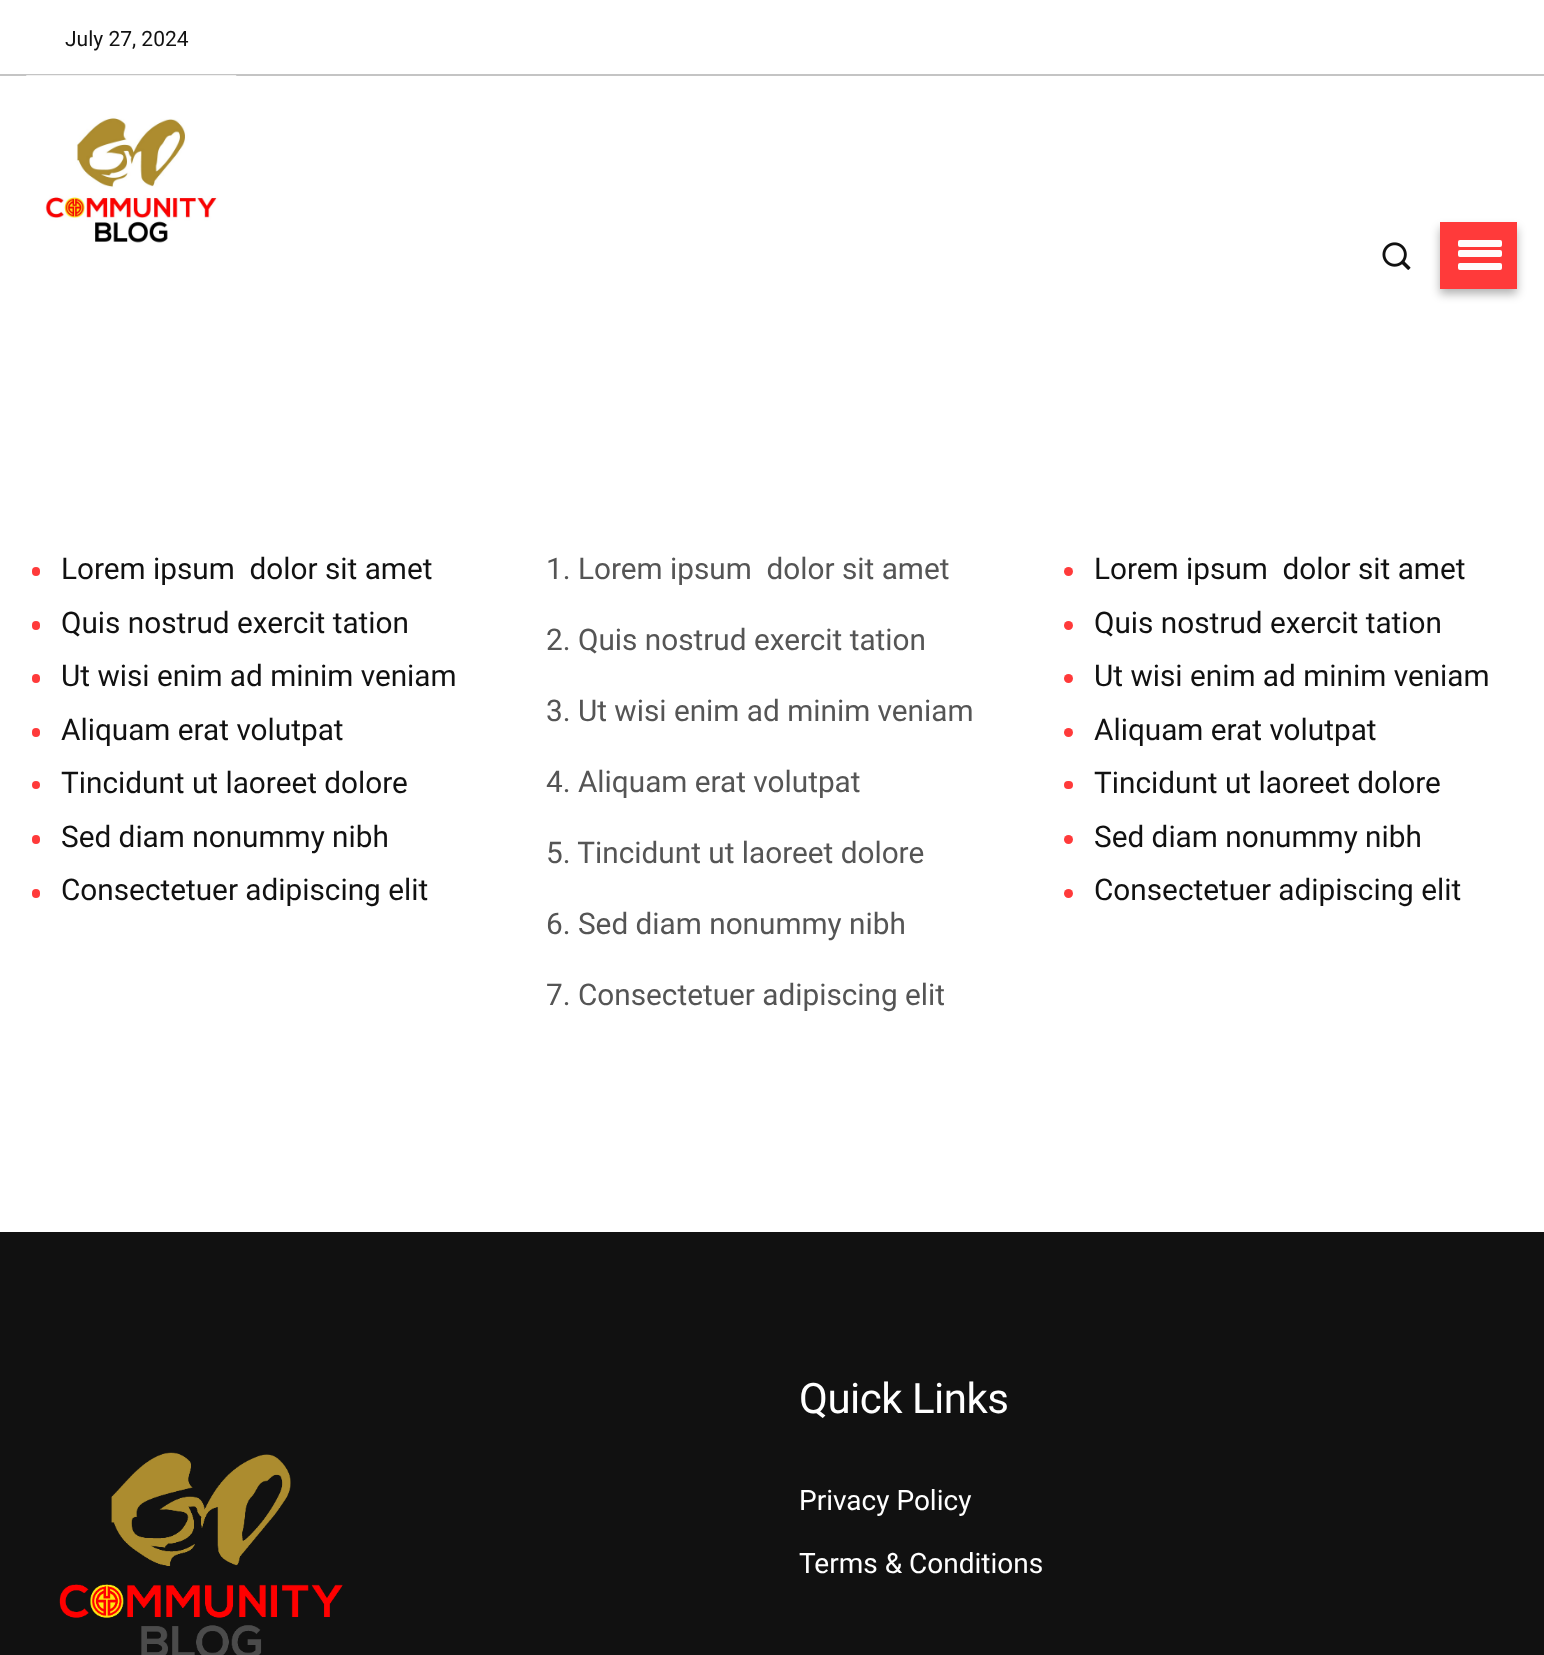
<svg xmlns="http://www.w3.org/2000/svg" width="1544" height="1655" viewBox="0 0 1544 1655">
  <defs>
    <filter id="blur1" x="-50%" y="-200%" width="200%" height="500%"><feGaussianBlur stdDeviation="5"/></filter>
  </defs>
  <rect width="100%" height="100%" fill="#ffffff"/>
  <rect x="0" y="74" width="1544" height="2" fill="#c4c4c4"/>
  <text x="65" y="46" font-family="Roboto" font-size="21" fill="#111111">July 27, 2024</text>
  <image x="26" y="75" width="211" height="168" href="img1.png"/>
  <image x="1382" y="242" width="29" height="28" href="img2.png"/>
  <rect x="1440" y="228" width="77" height="66" fill="#000000" fill-opacity="0.3" filter="url(#blur1)"/>
  <rect x="1440" y="222" width="77" height="67" fill="#ff3a3a"/>
  <rect x="1458" y="240" width="44" height="7" rx="2" fill="#ffffff"/>
  <rect x="1458" y="250" width="44" height="7" rx="2" fill="#ffffff"/>
  <rect x="1458" y="263" width="44" height="7" rx="2" fill="#ffffff"/>
  <rect x="32" y="567" width="8" height="9" rx="4" fill="#ff3a3a"/>
  <text x="61" y="579" font-family="Roboto" font-size="29.75" fill="#111111" xml:space="preserve">Lorem ipsum  dolor sit amet</text>
  <rect x="32" y="621" width="8" height="9" rx="4" fill="#ff3a3a"/>
  <text x="61" y="633" font-family="Roboto" font-size="29.75" fill="#111111">Quis nostrud exercit tation</text>
  <rect x="32" y="674" width="8" height="9" rx="4" fill="#ff3a3a"/>
  <text x="61" y="686" font-family="Roboto" font-size="29.75" fill="#111111">Ut wisi enim ad minim veniam</text>
  <rect x="32" y="728" width="8" height="9" rx="4" fill="#ff3a3a"/>
  <text x="61" y="740" font-family="Roboto" font-size="29.75" fill="#111111">Aliquam erat volutpat</text>
  <circle cx="36" cy="785" r="4" fill="#ff3a3a"/>
  <text x="61" y="793" font-family="Roboto" font-size="29.75" fill="#111111">Tincidunt ut laoreet dolore</text>
  <rect x="32" y="835" width="8" height="9" rx="4" fill="#ff3a3a"/>
  <text x="61" y="847" font-family="Roboto" font-size="29.75" fill="#111111">Sed diam nonummy nibh</text>
  <rect x="32" y="889" width="8" height="9" rx="4" fill="#ff3a3a"/>
  <text x="61" y="900" font-family="Roboto" font-size="29.75" fill="#111111">Consectetuer adipiscing elit</text>
  <text x="546" y="579" font-family="Roboto" font-size="29.75" fill="#555555" xml:space="preserve">1. Lorem ipsum  dolor sit amet</text>
  <text x="546" y="650" font-family="Roboto" font-size="29.75" fill="#555555">2. Quis nostrud exercit tation</text>
  <text x="546" y="721" font-family="Roboto" font-size="29.75" fill="#555555">3. Ut wisi enim ad minim veniam</text>
  <text x="546" y="792" font-family="Roboto" font-size="29.75" fill="#555555">4. Aliquam erat volutpat</text>
  <text x="546" y="863" font-family="Roboto" font-size="29.75" fill="#555555">5. Tincidunt ut laoreet dolore</text>
  <text x="546" y="934" font-family="Roboto" font-size="29.75" fill="#555555">6. Sed diam nonummy nibh</text>
  <text x="546" y="1005" font-family="Roboto" font-size="29.75" fill="#555555">7. Consectetuer adipiscing elit</text>
  <circle cx="1068.5" cy="571.5" r="4.5" fill="#ff3a3a"/>
  <text x="1094" y="579" font-family="Roboto" font-size="29.75" fill="#111111" xml:space="preserve">Lorem ipsum  dolor sit amet</text>
  <circle cx="1068.5" cy="625.5" r="4.5" fill="#ff3a3a"/>
  <text x="1094" y="633" font-family="Roboto" font-size="29.75" fill="#111111">Quis nostrud exercit tation</text>
  <circle cx="1068.5" cy="678.5" r="4.5" fill="#ff3a3a"/>
  <text x="1094" y="686" font-family="Roboto" font-size="29.75" fill="#111111">Ut wisi enim ad minim veniam</text>
  <circle cx="1068.5" cy="732.5" r="4.5" fill="#ff3a3a"/>
  <text x="1094" y="740" font-family="Roboto" font-size="29.75" fill="#111111">Aliquam erat volutpat</text>
  <rect x="1064" y="781" width="9" height="8" rx="4" fill="#ff3a3a"/>
  <text x="1094" y="793" font-family="Roboto" font-size="29.75" fill="#111111">Tincidunt ut laoreet dolore</text>
  <circle cx="1068.5" cy="839.5" r="4.5" fill="#ff3a3a"/>
  <text x="1094" y="847" font-family="Roboto" font-size="29.75" fill="#111111">Sed diam nonummy nibh</text>
  <circle cx="1068.5" cy="893.5" r="4.5" fill="#ff3a3a"/>
  <text x="1094" y="900" font-family="Roboto" font-size="29.75" fill="#111111">Consectetuer adipiscing elit</text>
  <rect x="0" y="1232" width="1544" height="423" fill="#111111"/>
  <image x="59" y="1452" width="284" height="203" href="img3.png"/>
  <text x="799" y="1413" font-family="Roboto" font-size="42" letter-spacing="-0.5" fill="#ffffff">Quick Links</text>
  <text x="799" y="1510" font-family="Roboto" font-size="28" fill="#ffffff">Privacy Policy</text>
  <text x="799" y="1573" font-family="Roboto" font-size="28" fill="#ffffff">Terms &amp; Conditions</text>
</svg>
